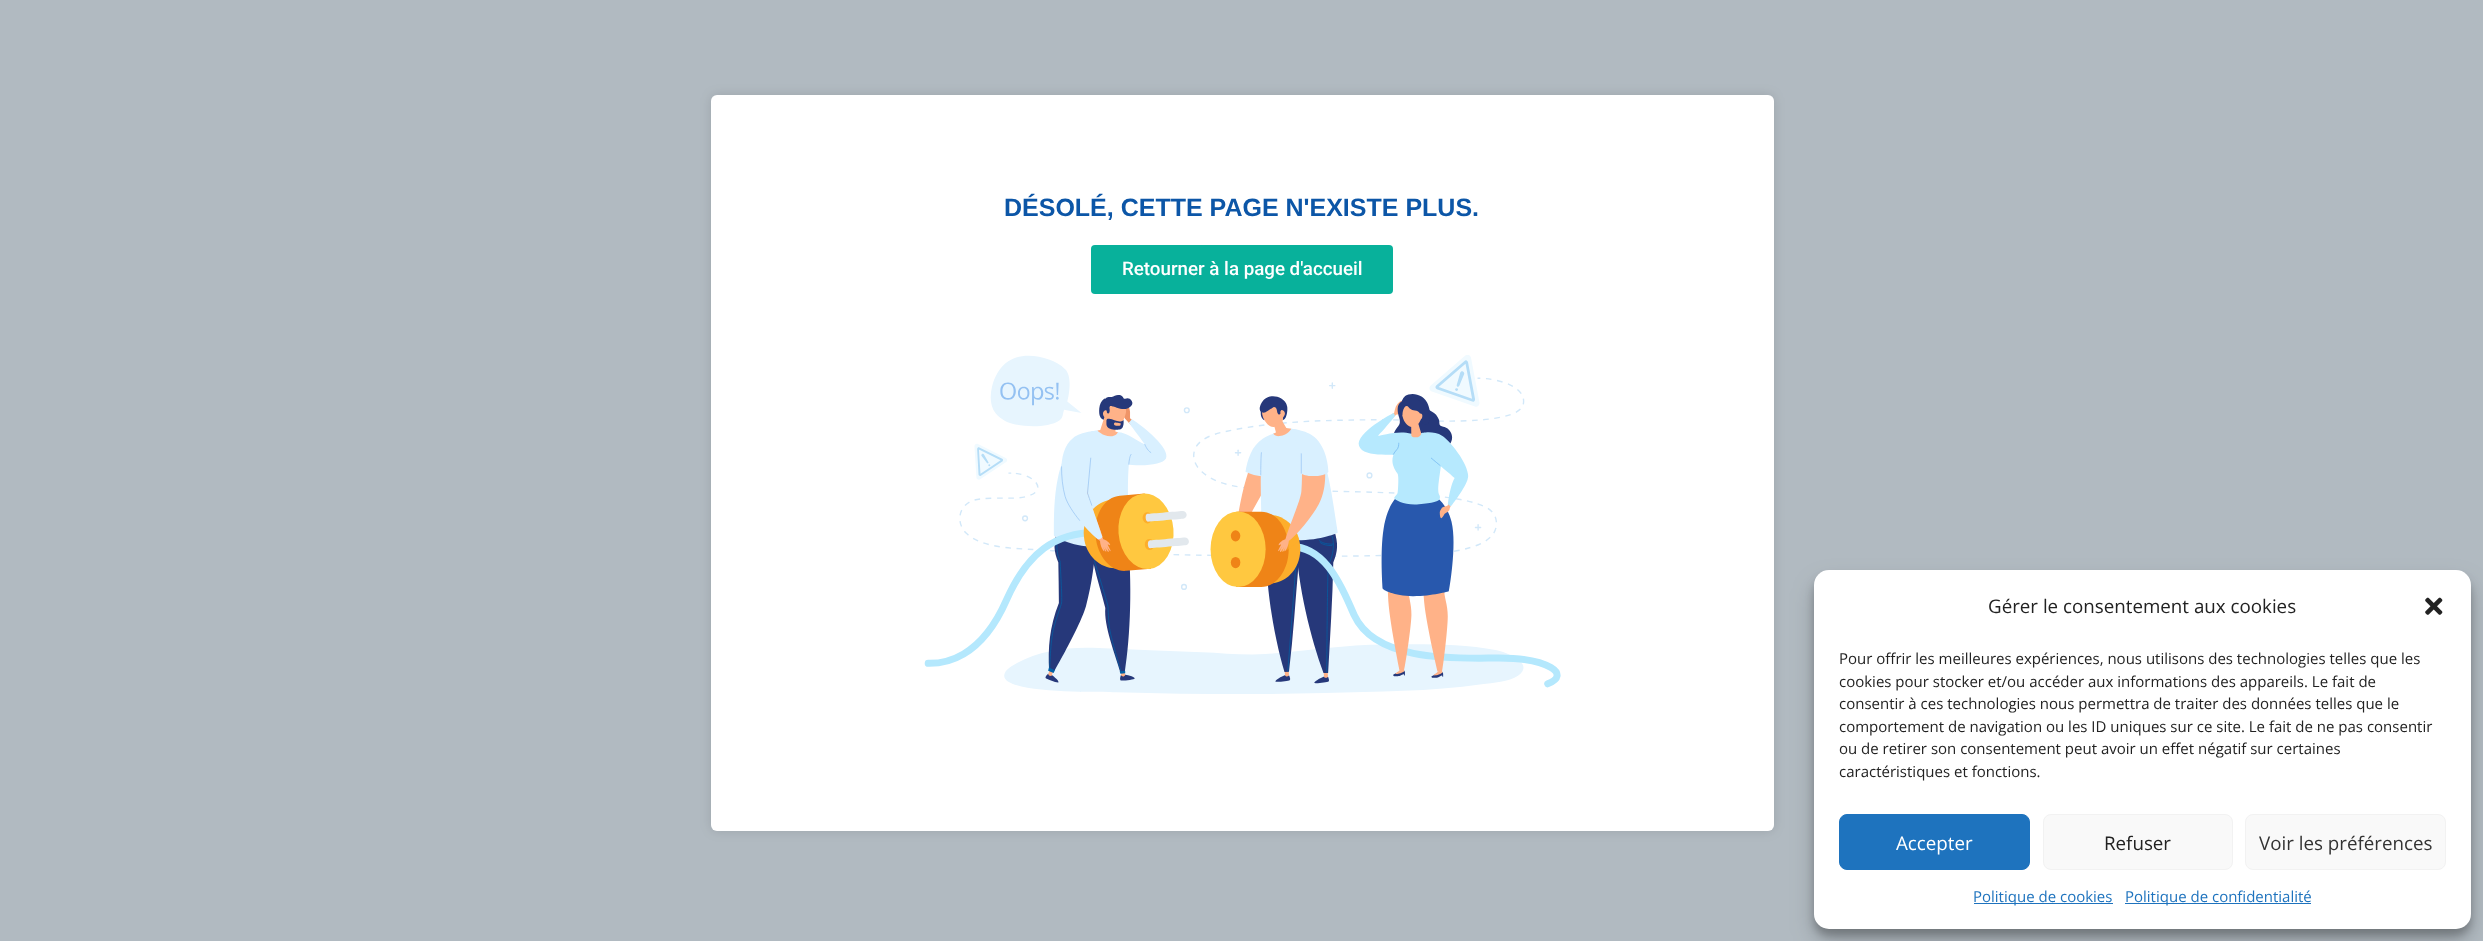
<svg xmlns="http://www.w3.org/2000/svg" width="2483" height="941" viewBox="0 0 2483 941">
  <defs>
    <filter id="blur1" x="-50%" y="-200%" width="200%" height="500%"><feGaussianBlur stdDeviation="6"/></filter>
    <filter id="blur2" x="-50%" y="-200%" width="200%" height="500%"><feGaussianBlur stdDeviation="4"/></filter>
    <filter id="blur3" x="-50%" y="-200%" width="200%" height="500%"><feGaussianBlur stdDeviation="12.5"/></filter>
  </defs>
  <rect width="100%" height="100%" fill="#b1bac1"/>
  <rect x="711" y="95" width="1063" height="736" rx="6" fill="#000000" fill-opacity="0.12" filter="url(#blur1)"/>
  <rect x="711" y="95" width="1063" height="736" rx="6" fill="#ffffff"/>
  <text x="1004" y="216" font-family="Liberation Sans" font-size="25" font-weight="bold" fill="#0c56a7">DÉSOLÉ, CETTE PAGE N'EXISTE PLUS.</text>
  <rect x="1091" y="245" width="302" height="49" rx="4" fill="#08b19b"/>
  <text x="1122" y="275" font-family="Roboto" font-size="18.75" font-weight="500" fill="#ffffff">Retourner à la page d'accueil</text>
  <image x="924" y="355" width="637" height="339" href="img1.png"/>
  <rect x="1814" y="578" width="657" height="358" rx="15" fill="#000000" fill-opacity="0.23" filter="url(#blur2)"/>
  <rect x="1814" y="583" width="657" height="358" rx="15" fill="#000000" fill-opacity="0.19" filter="url(#blur3)"/>
  <rect x="1814" y="570" width="657" height="359" rx="15" fill="#ffffff"/>
  <text x="1988" y="613" font-family="Open Sans" font-size="18.75" fill="#222222">Gérer le consentement aux cookies</text>
  <image x="2425" y="597" width="18" height="18" href="img2.png"/>
  <text x="1839" y="664" font-family="Open Sans" font-size="15" fill="#222222">Pour offrir les meilleures expériences, nous utilisons des technologies telles que les</text>
  <text x="1839" y="687" font-family="Open Sans" font-size="15" fill="#222222">cookies pour stocker et/ou accéder aux informations des appareils. Le fait de</text>
  <text x="1839" y="709" font-family="Open Sans" font-size="15" fill="#222222">consentir à ces technologies nous permettra de traiter des données telles que le</text>
  <text x="1839" y="732" font-family="Open Sans" font-size="15" fill="#222222">comportement de navigation ou les ID uniques sur ce site. Le fait de ne pas consentir</text>
  <text x="1839" y="754" font-family="Open Sans" font-size="15" fill="#222222">ou de retirer son consentement peut avoir un effet négatif sur certaines</text>
  <text x="1839" y="777" font-family="Open Sans" font-size="15" fill="#222222">caractéristiques et fonctions.</text>
  <rect x="1839.5" y="814.5" width="190" height="55" rx="7.5" fill="#1e73be" stroke="#1e73be"/>
  <text x="1896" y="850" font-family="Open Sans" font-size="18.75" fill="#ffffff">Accepter</text>
  <rect x="2043.5" y="814.5" width="189" height="55" rx="7.5" fill="#f9f9f9" stroke="#f2f2f2"/>
  <text x="2104" y="850" font-family="Open Sans" font-size="18.75" fill="#222222">Refuser</text>
  <rect x="2245.5" y="814.5" width="200" height="55" rx="7.5" fill="#f9f9f9" stroke="#f2f2f2"/>
  <text x="2259" y="850" font-family="Open Sans" font-size="18.75" fill="#333333">Voir les préférences</text>
  <rect x="1974" y="903" width="139" height="1" fill="#1e73be"/>
  <text x="1973" y="902" font-family="Open Sans" font-size="15" fill="#1e73be">Politique de cookies</text>
  <rect x="2125" y="903" width="186" height="1" fill="#1e73be"/>
  <text x="2125" y="902" font-family="Open Sans" font-size="15" fill="#1e73be">Politique de confidentialité</text>
</svg>
